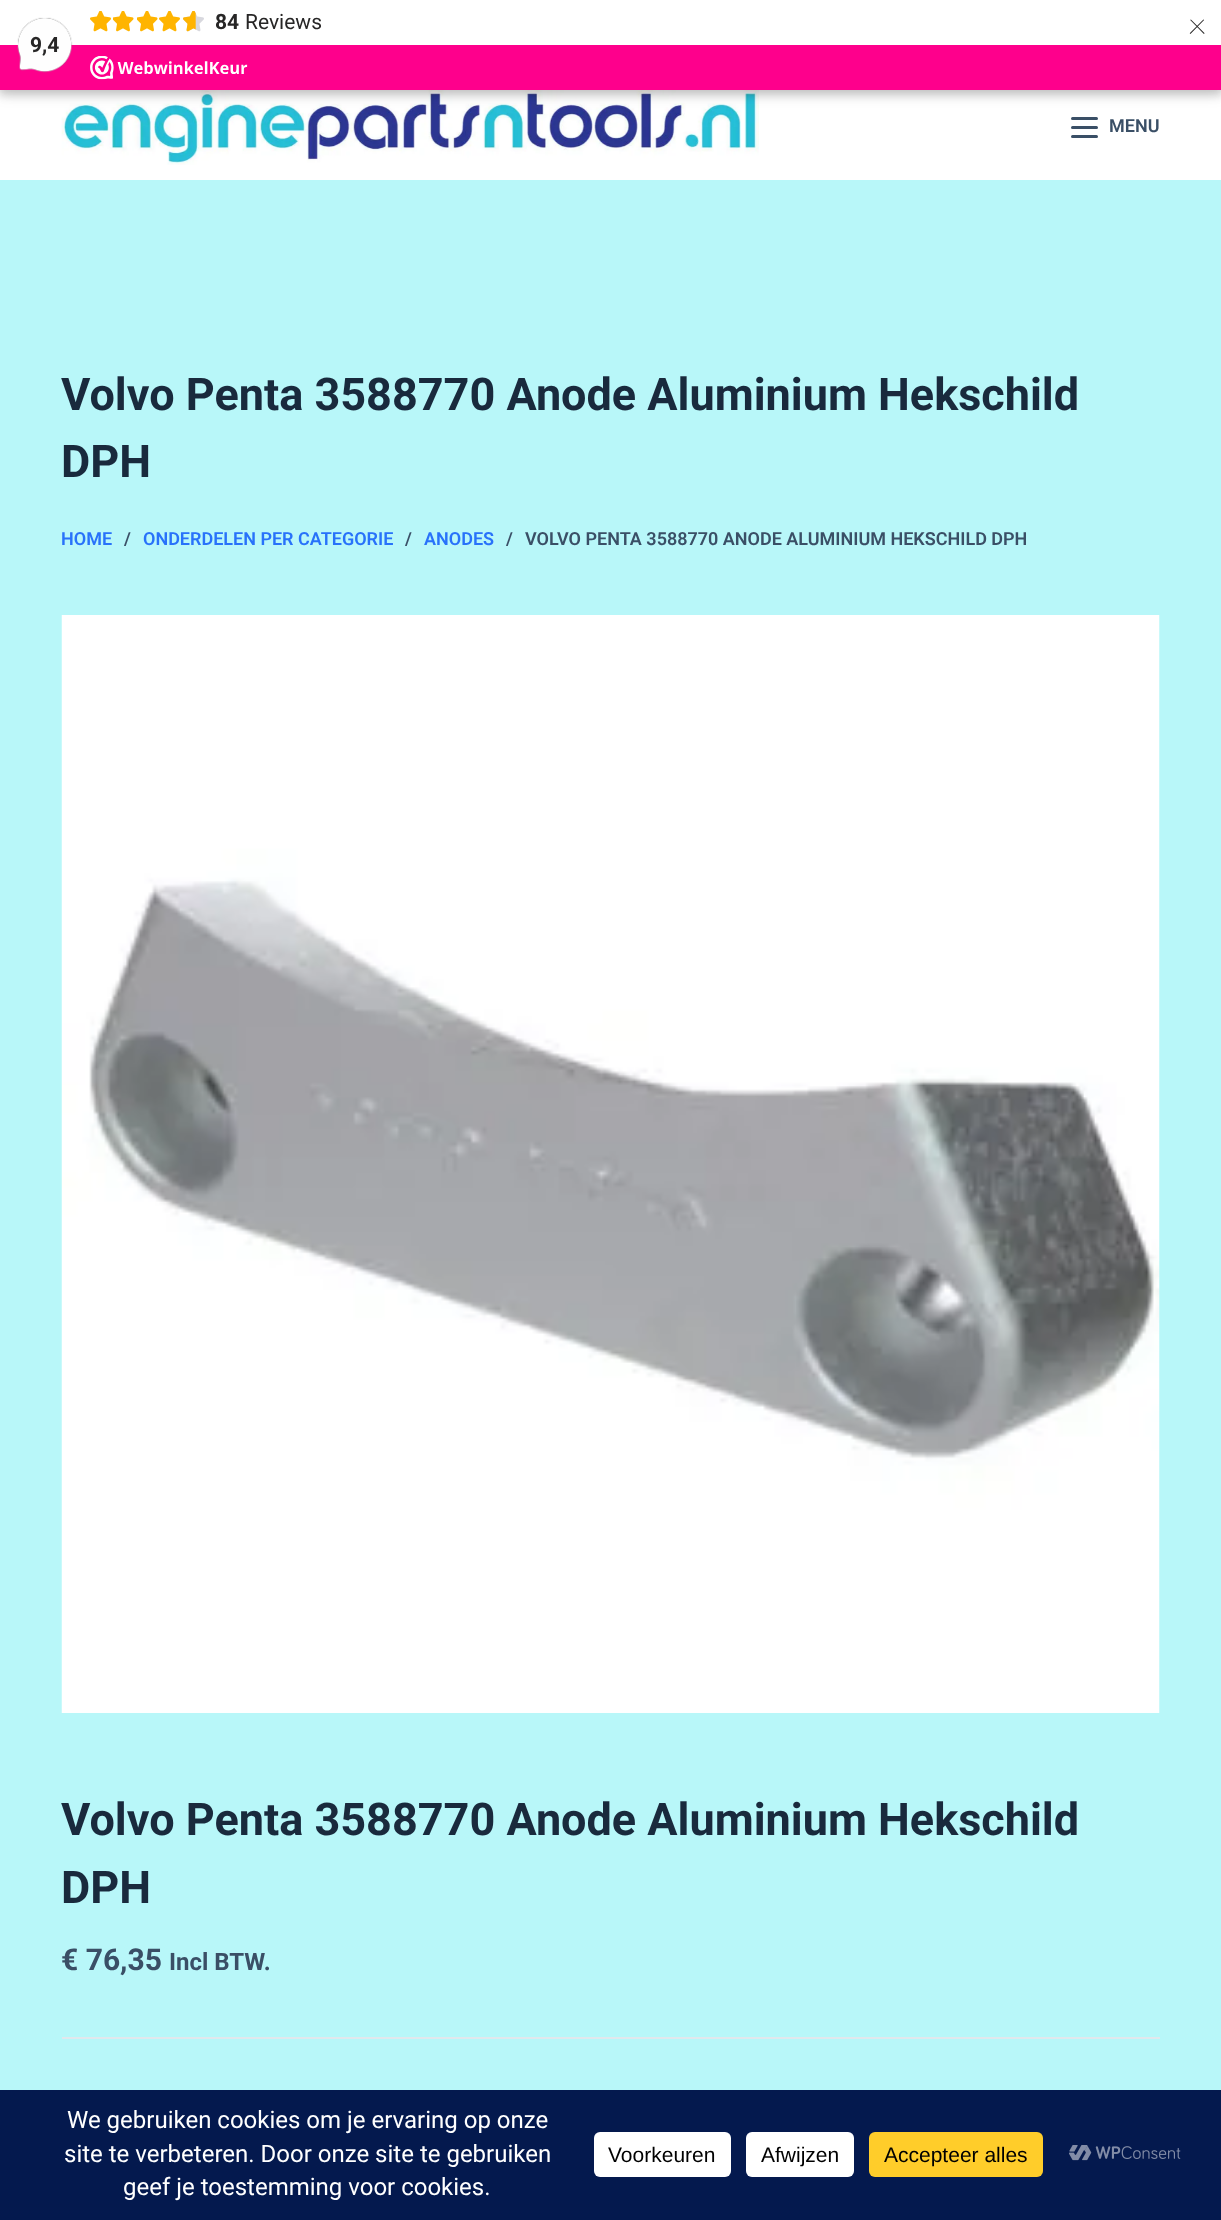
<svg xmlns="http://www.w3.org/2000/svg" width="1221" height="2220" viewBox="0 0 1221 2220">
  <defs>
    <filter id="blur1" x="-50%" y="-200%" width="200%" height="500%"><feGaussianBlur stdDeviation="4.5"/></filter>
    <filter id="blur2" x="-50%" y="-200%" width="200%" height="500%"><feGaussianBlur stdDeviation="7.5"/></filter>
  </defs>
  <rect width="100%" height="100%" fill="#b8f7f9"/>
  <rect x="0" y="90" width="1221" height="90" fill="#ffffff"/>
  <image x="61" y="90" width="698" height="75" href="img7.png"/>
  <rect x="-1" y="-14" width="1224" height="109" fill="#000000" fill-opacity="0.15" filter="url(#blur1)"/>
  <rect x="0" y="3" width="1221" height="90" fill="#000000" fill-opacity="0.15" filter="url(#blur2)"/>
  <rect x="0" y="0" width="1221" height="45" fill="#ffffff"/>
  <image x="90" y="11" width="21" height="21" href="img1.png"/>
  <image x="113" y="11" width="21" height="21" href="img2.png"/>
  <image x="137" y="11" width="21" height="21" href="img2.png"/>
  <image x="159" y="11" width="21" height="21" href="img1.png"/>
  <image x="183" y="11" width="21" height="21" href="img3.png"/>
  <image x="183" y="11" width="13" height="21" href="img4.png"/>
  <text x="215" y="29" font-family="Roboto" font-size="21" font-weight="bold" fill="#272626">84</text>
  <text x="245" y="29" font-family="Roboto" font-size="21" fill="#272626">Reviews</text>
  <text x="1188" y="34" font-family="Roboto" font-size="36" font-weight="100" fill="#272626">×</text>
  <rect x="0" y="45" width="1221" height="45" fill="#fe008c"/>
  <image x="17" y="17" width="56" height="56" href="img5.png"/>
  <text x="30" y="52" font-family="Roboto" font-size="21" font-weight="bold" fill="#272626">9,4</text>
  <image x="90" y="56" width="158" height="24" href="img6.png"/>
  <rect x="1071" y="117" width="27" height="3" rx="1.5" fill="#3a4f66"/>
  <rect x="1071" y="126" width="27" height="3" rx="1.5" fill="#3a4f66"/>
  <rect x="1071" y="135" width="27" height="3" rx="1.5" fill="#3a4f66"/>
  <text x="1109" y="132" font-family="Roboto" font-size="18" font-weight="600" fill="#3a4f66">MENU</text>
  <text x="61" y="410" font-family="Roboto" font-size="45" font-weight="bold" fill="#192a3d">Volvo Penta 3588770 Anode Aluminium Hekschild</text>
  <text x="61" y="477" font-family="Roboto" font-size="45" font-weight="bold" fill="#192a3d">DPH</text>
  <text x="61" y="545" font-family="Roboto" font-size="18" font-weight="600" fill="#2872fa">HOME</text>
  <text x="124" y="545" font-family="Roboto" font-size="18" font-weight="600" fill="#3a4f66">/</text>
  <text x="143" y="545" font-family="Roboto" font-size="18" font-weight="600" fill="#2872fa">ONDERDELEN PER CATEGORIE</text>
  <text x="405" y="545" font-family="Roboto" font-size="18" font-weight="600" fill="#3a4f66">/</text>
  <text x="424" y="545" font-family="Roboto" font-size="18" font-weight="600" fill="#2872fa">ANODES</text>
  <text x="506" y="545" font-family="Roboto" font-size="18" font-weight="600" fill="#3a4f66">/</text>
  <text x="525" y="545" font-family="Roboto" font-size="18" font-weight="600" fill="#3a4f66">VOLVO PENTA 3588770 ANODE ALUMINIUM HEKSCHILD DPH</text>
  <image x="61" y="615" width="1099" height="1098" href="img8.png"/>
  <text x="61" y="1835" font-family="Roboto" font-size="45" font-weight="bold" fill="#192a3d">Volvo Penta 3588770 Anode Aluminium Hekschild</text>
  <text x="61" y="1903" font-family="Roboto" font-size="45" font-weight="bold" fill="#192a3d">DPH</text>
  <text x="61" y="1970" font-family="Roboto" font-size="30" font-weight="bold" fill="#3a4f66">€ 76,35</text>
  <text x="169" y="1970" font-family="Roboto" font-size="24" font-weight="bold" fill="#3a4f66">Incl BTW.</text>
  <rect x="62" y="2037" width="1098" height="2" fill="#e1e8ed"/>
  <rect x="0" y="2090" width="1221" height="130" fill="#04194e"/>
  <text x="67" y="2128" font-family="Roboto" font-size="24" fill="#ffffff">We gebruiken cookies om je ervaring op onze</text>
  <text x="64" y="2162" font-family="Roboto" font-size="24" fill="#ffffff">site te verbeteren. Door onze site te gebruiken</text>
  <text x="123" y="2195" font-family="Roboto" font-size="24" fill="#ffffff">geef je toestemming voor cookies.</text>
  <rect x="594" y="2132" width="137" height="45" rx="6" fill="#ffffff"/>
  <text x="608" y="2162" font-family="Liberation Sans" font-size="21" fill="#000000">Voorkeuren</text>
  <rect x="746" y="2132" width="108" height="45" rx="6" fill="#ffffff"/>
  <text x="761" y="2162" font-family="Liberation Sans" font-size="21" fill="#000000">Afwijzen</text>
  <rect x="869" y="2132" width="174" height="45" rx="6" fill="#ffcd2a"/>
  <text x="884" y="2162" font-family="Liberation Sans" font-size="21" fill="#000000">Accepteer alles</text>
  <image x="1069" y="2145" width="112" height="16" href="img9.png"/>
</svg>
